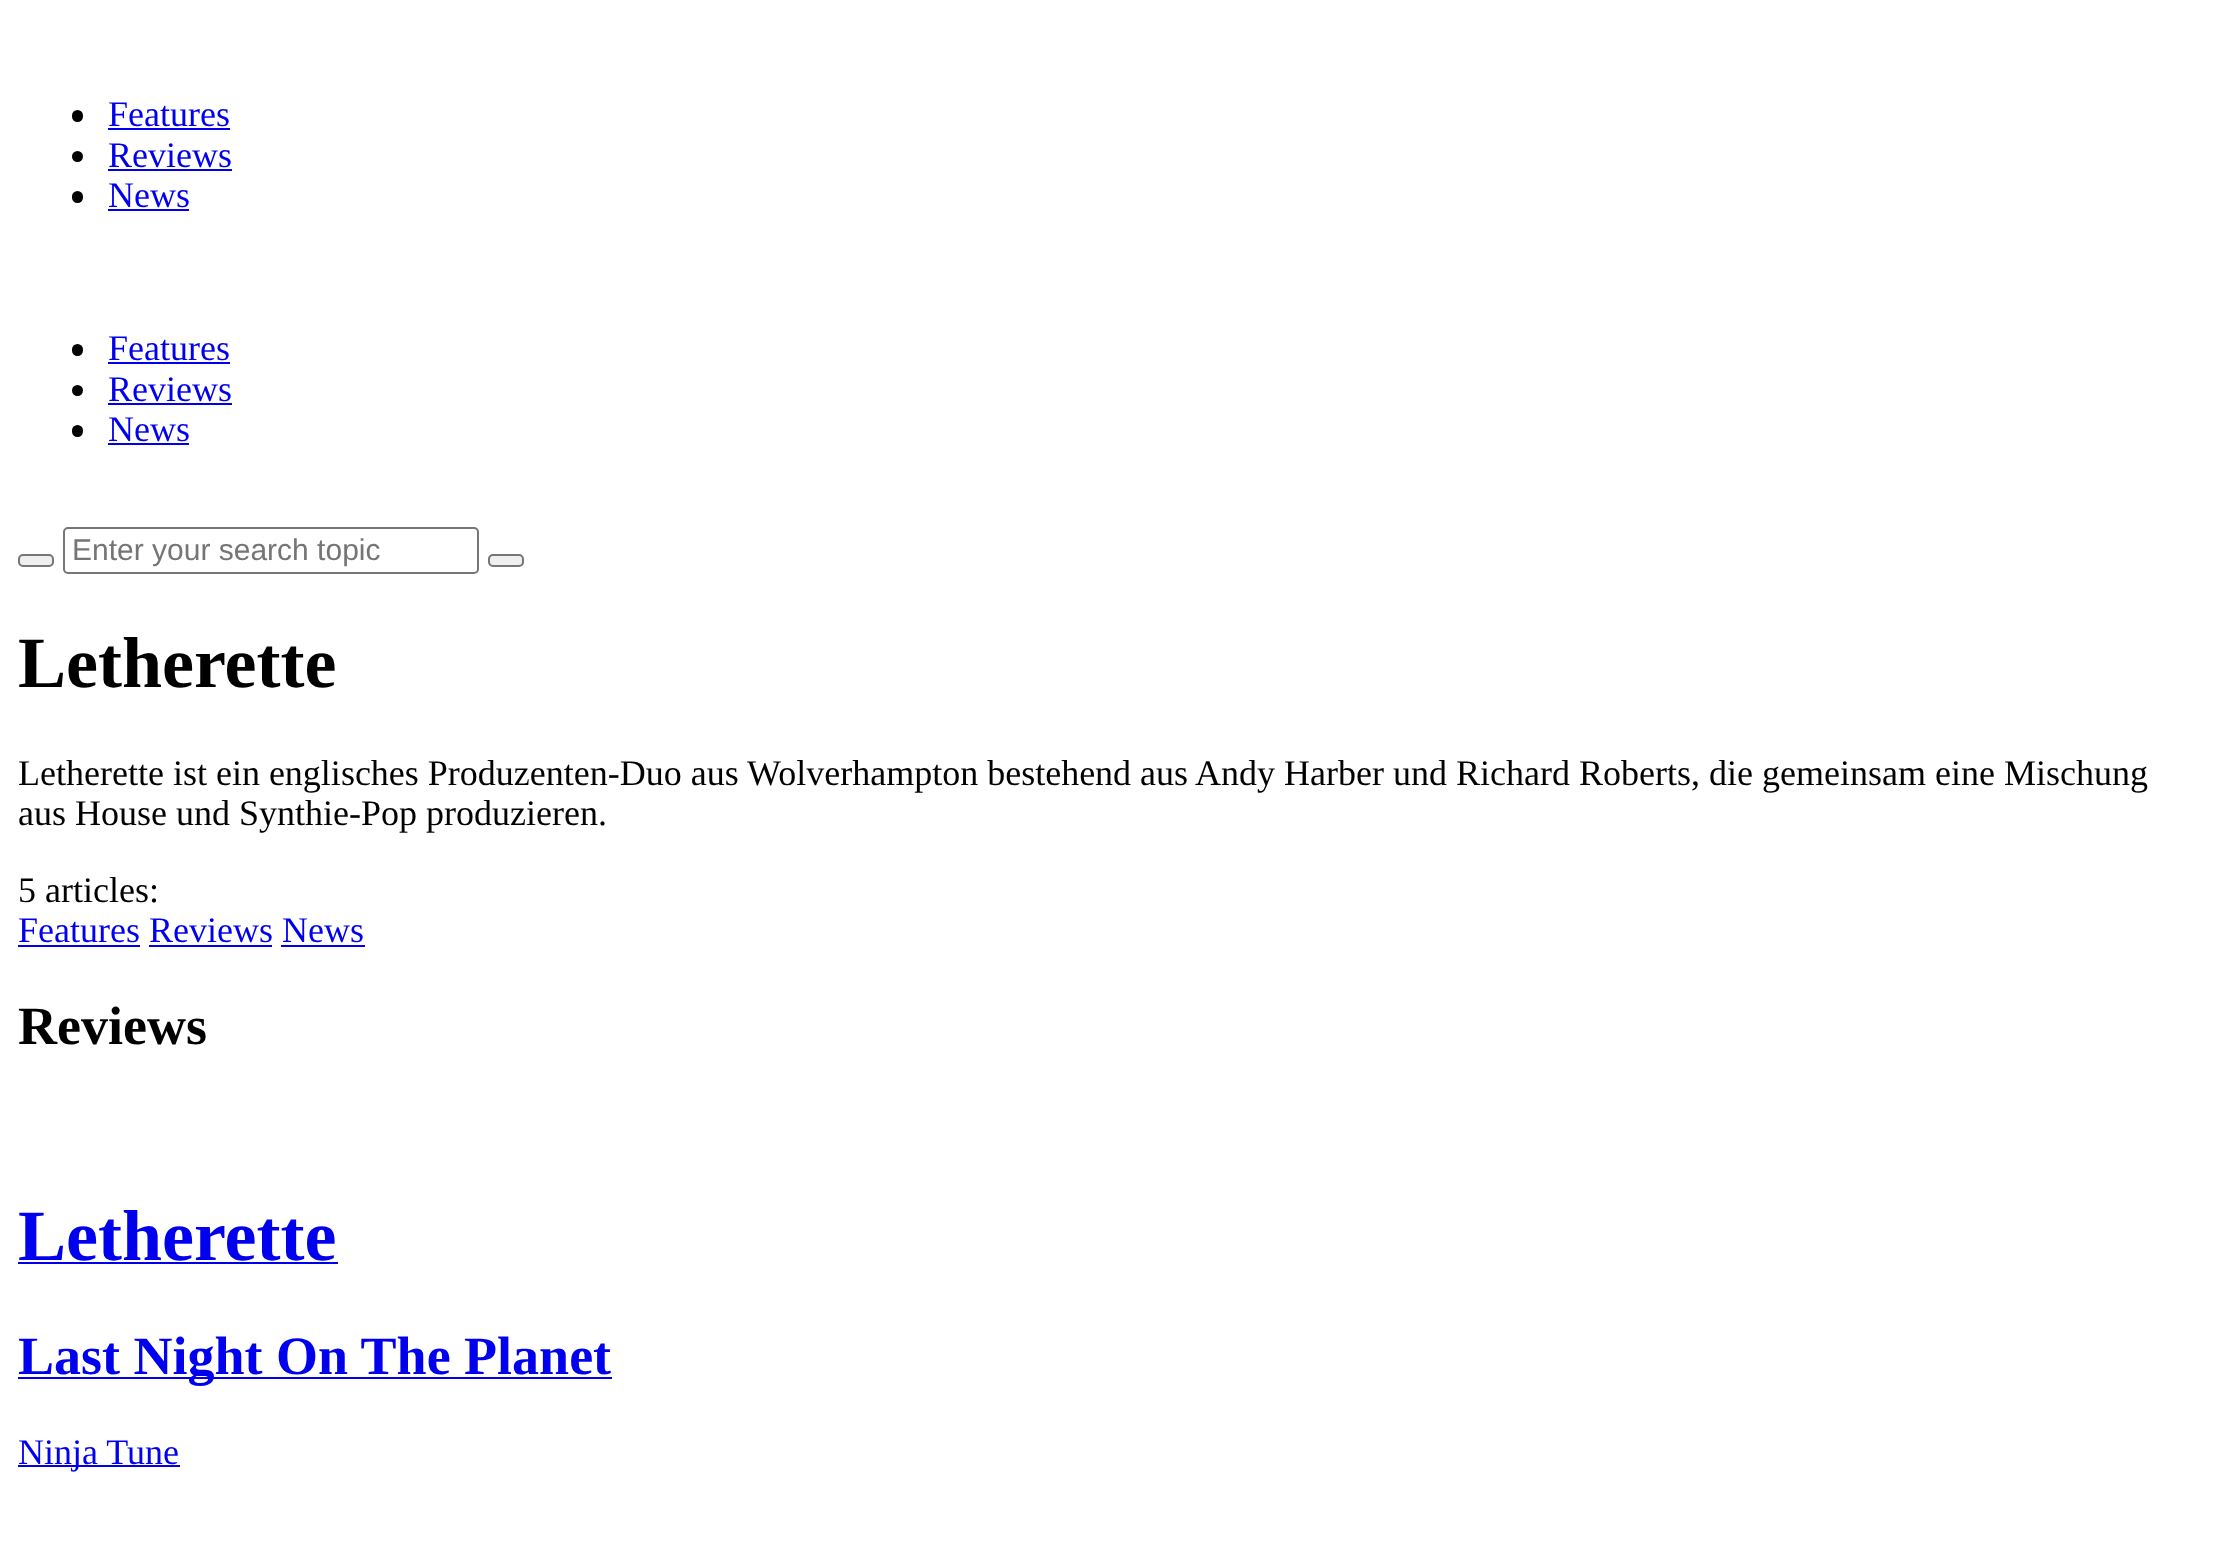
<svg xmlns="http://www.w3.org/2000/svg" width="2219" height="1564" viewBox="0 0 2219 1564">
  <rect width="100%" height="100%" fill="#ffffff"/>
  <rect x="72" y="110" width="11" height="12" rx="5.5" fill="#000000"/>
  <text x="108" y="126" font-family="Liberation Serif" font-size="36" fill="#0000ee">Features</text>
  <rect x="108" y="128" width="122" height="2" fill="#0000ee"/>
  <circle cx="77.5" cy="156.5" r="5.5" fill="#000000"/>
  <text x="108" y="167" font-family="Liberation Serif" font-size="36" fill="#0000ee">Reviews</text>
  <rect x="108" y="169" width="124" height="2" fill="#0000ee"/>
  <rect x="72" y="191" width="11" height="12" rx="5.5" fill="#000000"/>
  <text x="108" y="207" font-family="Liberation Serif" font-size="36" fill="#0000ee">News</text>
  <rect x="108" y="209" width="81" height="2" fill="#0000ee"/>
  <rect x="72" y="344" width="11" height="12" rx="5.5" fill="#000000"/>
  <text x="108" y="360" font-family="Liberation Serif" font-size="36" fill="#0000ee">Features</text>
  <rect x="108" y="362" width="122" height="2" fill="#0000ee"/>
  <circle cx="77.5" cy="390.5" r="5.5" fill="#000000"/>
  <text x="108" y="401" font-family="Liberation Serif" font-size="36" fill="#0000ee">Reviews</text>
  <rect x="108" y="403" width="124" height="2" fill="#0000ee"/>
  <rect x="72" y="425" width="11" height="12" rx="5.5" fill="#000000"/>
  <text x="108" y="441" font-family="Liberation Serif" font-size="36" fill="#0000ee">News</text>
  <rect x="108" y="443" width="81" height="2" fill="#0000ee"/>
  <rect x="19" y="555" width="34" height="11" rx="4" fill="#efefef" stroke="#767676" stroke-width="2"/>
  <rect x="64" y="528" width="414" height="45" rx="4" fill="none" stroke="#767676" stroke-width="2"/>
  <text x="72" y="560" font-family="Liberation Sans" font-size="30" fill="#757575">Enter your search topic</text>
  <rect x="489" y="555" width="34" height="11" rx="4" fill="#efefef" stroke="#767676" stroke-width="2"/>
  <text x="18" y="687" font-family="Liberation Serif" font-size="72" font-weight="bold" fill="#000000">Letherette</text>
  <text x="18" y="785" font-family="Liberation Serif" font-size="36" fill="#000000">Letherette ist ein englisches Produzenten-Duo aus Wolverhampton bestehend aus Andy Harber und Richard Roberts, die gemeinsam eine Mischung</text>
  <text x="18" y="825" font-family="Liberation Serif" font-size="36" fill="#000000">aus House und Synthie-Pop produzieren.</text>
  <text x="18" y="902" font-family="Liberation Serif" font-size="36" fill="#000000">5 articles:</text>
  <text x="18" y="942" font-family="Liberation Serif" font-size="36" fill="#0000ee">Features Reviews News</text>
  <rect x="18" y="945" width="122" height="2" fill="#0000ee"/>
  <rect x="149" y="945" width="123" height="2" fill="#0000ee"/>
  <rect x="281" y="945" width="84" height="2" fill="#0000ee"/>
  <text x="18" y="1044" font-family="Liberation Serif" font-size="54" font-weight="bold" fill="#000000">Reviews</text>
  <text x="18" y="1260" font-family="Liberation Serif" font-size="72" font-weight="bold" fill="#0000ee">Letherette</text>
  <rect x="18" y="1262" width="320" height="2" fill="#0000ee"/>
  <rect x="18" y="1377" width="594" height="2" fill="#0000ee"/>
  <text x="18" y="1374" font-family="Liberation Serif" font-size="54" font-weight="bold" fill="#0000ee">Last Night On The Planet</text>
  <rect x="18" y="1465" width="162" height="2" fill="#0000ee"/>
  <text x="18" y="1464" font-family="Liberation Serif" font-size="36" fill="#0000ee">Ninja Tune</text>
</svg>
